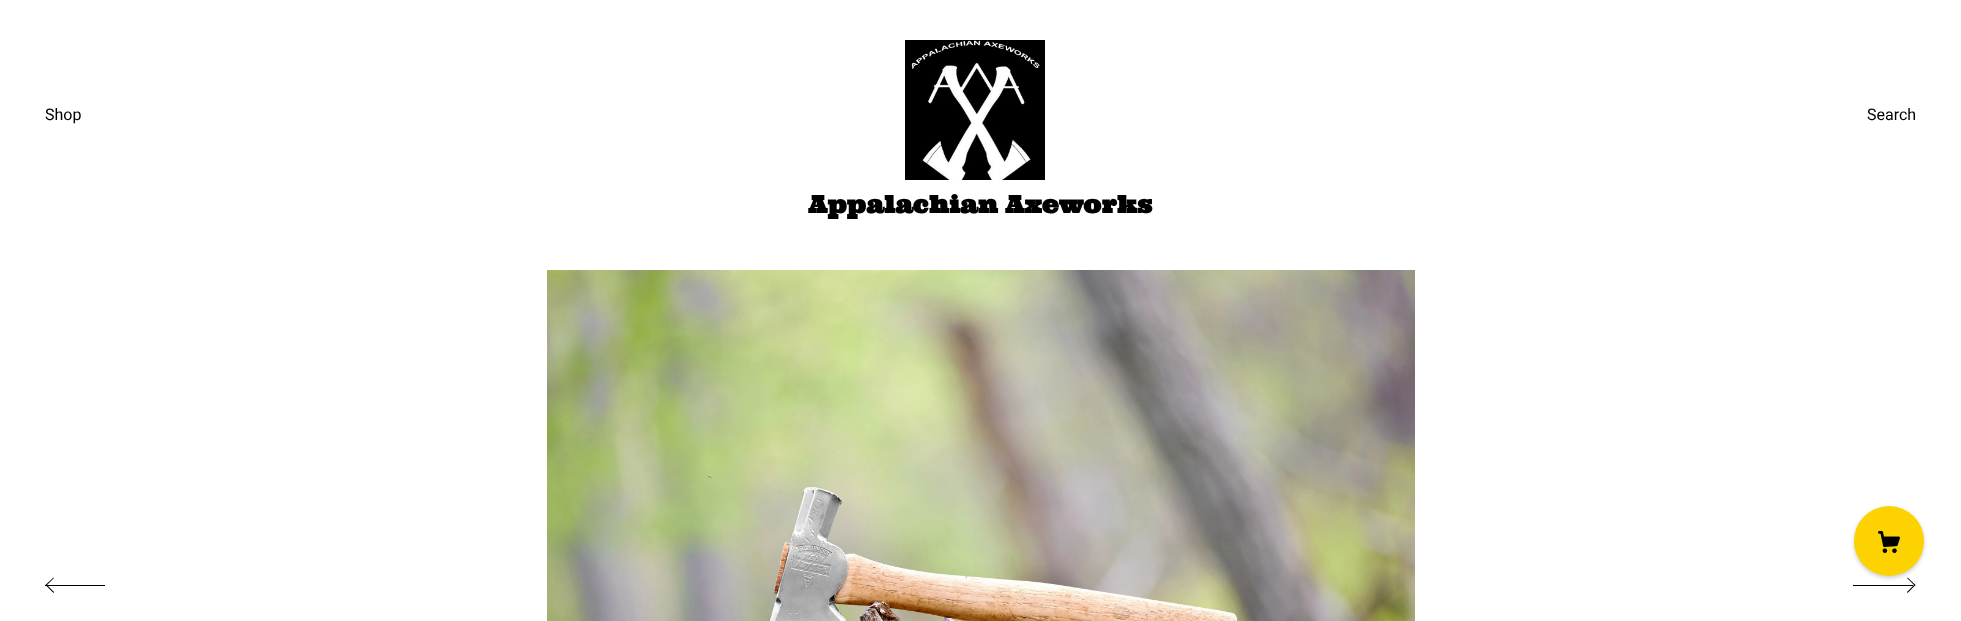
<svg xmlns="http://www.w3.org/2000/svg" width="1961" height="621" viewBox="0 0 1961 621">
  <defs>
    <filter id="blur1" x="-50%" y="-200%" width="200%" height="500%"><feGaussianBlur stdDeviation="2"/></filter>
  </defs>
  <rect width="100%" height="100%" fill="#ffffff"/>
  <text x="45" y="120" font-family="Roboto" font-size="16" fill="#000000">Shop</text>
  <text x="1867" y="120" font-family="Roboto" font-size="16" fill="#000000">Search</text>
  <image x="905" y="40" width="140" height="140" href="img1.png"/>
  <text x="808" y="213" font-family="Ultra" font-size="24" font-weight="bold" fill="#000000">Appalachian Axeworks</text>
  <image x="547" y="270" width="868" height="351" href="img2.png"/>
  <path d="M54 592L53.5 593L45.5 585L46.5 584.5Z" fill="#000000"/>
  <path d="M54 578L46.5 585.5L45.5 585L53.5 577.5Z" fill="#000000"/>
  <rect x="45" y="585" width="60" height="1" fill="#000000"/>
  <path d="M1907 578L1907.5 577.5L1915.5 585L1914.5 585.5Z" fill="#000000"/>
  <path d="M1907 592L1914.5 584.5L1915.5 585L1907.5 593Z" fill="#000000"/>
  <rect x="1853" y="585" width="60" height="1" fill="#000000"/>
  <rect x="1854" y="508" width="70" height="70" rx="35" fill="#000000" fill-opacity="0.2" filter="url(#blur1)"/>
  <circle cx="1889" cy="541" r="35" fill="#fcd300"/>
  <image x="1878" y="531" width="22" height="22" href="img3.png"/>
</svg>
